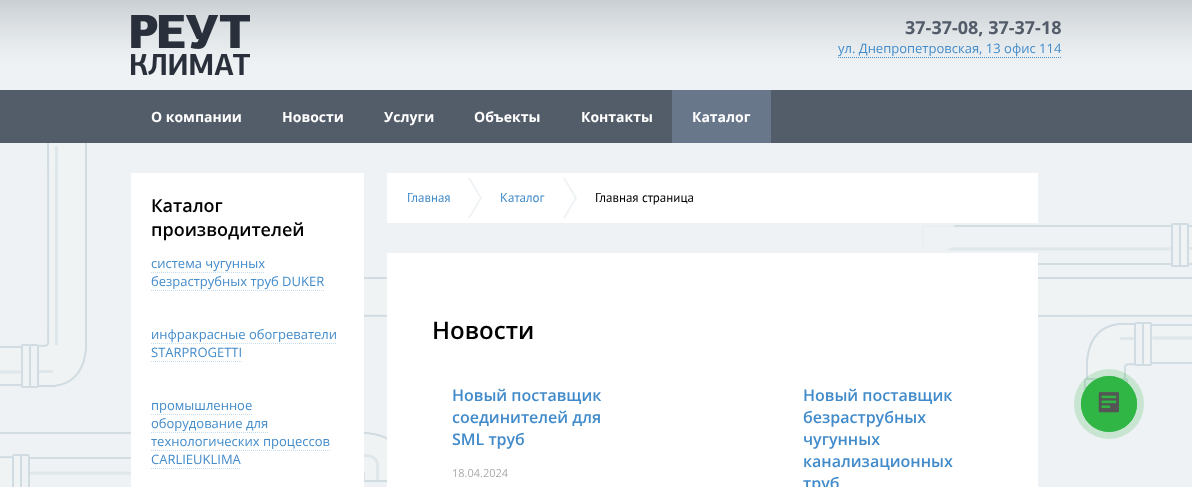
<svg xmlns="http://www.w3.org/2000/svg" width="1192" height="487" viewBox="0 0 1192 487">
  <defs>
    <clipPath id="clip1"><rect x="397" y="178" width="631" height="40"/></clipPath>
  </defs>
  <rect width="100%" height="100%" fill="#ffffff"/>
  <image x="0" y="143" width="1192" height="344" href="img1.png"/>
  <image x="0" y="0" width="1192" height="90" href="img2.png"/>
  <image x="131" y="15" width="119" height="60" href="img3.png"/>
  <text x="905" y="34" font-family="Open Sans" font-size="18" font-weight="bold" fill="#535c69">37-37-08, 37-37-18</text>
  <text x="838" y="53" font-family="Open Sans" font-size="13" fill="#428bca">ул. Днепропетровская, 13 офис 114</text>
  <path d="M838 57.5H1061" fill="none" stroke="#428bca" stroke-dasharray="1 1"/>
  <rect x="0" y="90" width="1192" height="53" fill="#535c69"/>
  <text x="151" y="122" font-family="Open Sans" font-size="14" font-weight="bold" fill="#ffffff">О компании</text>
  <text x="282" y="122" font-family="Open Sans" font-size="14" font-weight="bold" fill="#ffffff">Новости</text>
  <text x="384" y="122" font-family="Open Sans" font-size="14" font-weight="bold" fill="#ffffff">Услуги</text>
  <text x="474" y="122" font-family="Open Sans" font-size="14" font-weight="bold" fill="#ffffff">Объекты</text>
  <text x="581" y="122" font-family="Open Sans" font-size="14" font-weight="bold" fill="#ffffff">Контакты</text>
  <rect x="672" y="90" width="99" height="53" fill="#69778b"/>
  <text x="692" y="122" font-family="Open Sans" font-size="14" font-weight="bold" fill="#ffffff">Каталог</text>
  <rect x="131" y="173" width="233" height="314" fill="#ffffff"/>
  <text x="151" y="212" font-family="Open Sans" font-size="18" font-weight="600" fill="#000000">Каталог</text>
  <text x="151" y="236" font-family="Open Sans" font-size="18" font-weight="600" fill="#000000">производителей</text>
  <text x="151" y="268" font-family="Open Sans" font-size="13" fill="#428bca">система чугунных</text>
  <path d="M151 272.5H265" fill="none" stroke="#c6dcef" stroke-dasharray="1 1"/>
  <text x="151" y="286" font-family="Open Sans" font-size="13" fill="#428bca">безраструбных труб DUKER</text>
  <path d="M151 290.5H324" fill="none" stroke="#c6dcef" stroke-dasharray="1 1"/>
  <text x="151" y="339" font-family="Open Sans" font-size="13" fill="#428bca">инфракрасные обогреватели</text>
  <path d="M151 343.5H337" fill="none" stroke="#c6dcef" stroke-dasharray="1 1"/>
  <text x="151" y="357" font-family="Open Sans" font-size="13" fill="#428bca">STARPROGETTI</text>
  <path d="M151 361.5H242" fill="none" stroke="#c6dcef" stroke-dasharray="1 1"/>
  <text x="151" y="410" font-family="Open Sans" font-size="13" fill="#428bca">промышленное</text>
  <path d="M151 414.5H252" fill="none" stroke="#c6dcef" stroke-dasharray="1 1"/>
  <text x="151" y="428" font-family="Open Sans" font-size="13" fill="#428bca">оборудование для</text>
  <path d="M151 432.5H268" fill="none" stroke="#c6dcef" stroke-dasharray="1 1"/>
  <text x="151" y="446" font-family="Open Sans" font-size="13" fill="#428bca">технологических процессов</text>
  <path d="M151 450.5H330" fill="none" stroke="#c6dcef" stroke-dasharray="1 1"/>
  <text x="151" y="464" font-family="Open Sans" font-size="13" fill="#428bca">CARLIEUKLIMA</text>
  <path d="M151 468.5H241" fill="none" stroke="#c6dcef" stroke-dasharray="1 1"/>
  <rect x="387" y="173" width="651" height="50" fill="#ffffff"/>
  <g clip-path="url(#clip1)">
    <path d="M452 248V148L482 198Z" fill="#eef2f4"/>
    <path d="M450 248V148L480 198Z" fill="#ffffff"/>
  </g>
  <text x="407" y="202" font-family="PT Sans" font-size="13" fill="#428bca">Главная</text>
  <g clip-path="url(#clip1)">
    <path d="M547 248V148L577 198Z" fill="#eef2f4"/>
    <path d="M545 248V148L575 198Z" fill="#ffffff"/>
  </g>
  <text x="500" y="202" font-family="PT Sans" font-size="13" fill="#428bca">Каталог</text>
  <text x="595" y="202" font-family="PT Sans" font-size="13" fill="#000000">Главная страница</text>
  <rect x="387" y="253" width="651" height="234" fill="#ffffff"/>
  <text x="432" y="339" font-family="Open Sans" font-size="24" font-weight="600" fill="#000000">Новости</text>
  <text x="452" y="401" font-family="Open Sans" font-size="16" font-weight="600" fill="#428bca">Новый поставщик</text>
  <text x="452" y="423" font-family="Open Sans" font-size="16" font-weight="600" fill="#428bca">соединителей для</text>
  <text x="452" y="445" font-family="Open Sans" font-size="16" font-weight="600" fill="#428bca">SML труб</text>
  <text x="452" y="477" font-family="Open Sans" font-size="11" fill="#aaaaaa">18.04.2024</text>
  <text x="803" y="401" font-family="Open Sans" font-size="16" font-weight="600" fill="#428bca">Новый поставщик</text>
  <text x="803" y="423" font-family="Open Sans" font-size="16" font-weight="600" fill="#428bca">безраструбных</text>
  <text x="803" y="445" font-family="Open Sans" font-size="16" font-weight="600" fill="#428bca">чугунных</text>
  <text x="803" y="467" font-family="Open Sans" font-size="16" font-weight="600" fill="#428bca">канализационных</text>
  <text x="803" y="489" font-family="Open Sans" font-size="16" font-weight="600" fill="#428bca">труб</text>
  <circle cx="1109" cy="404" r="35" fill="#2fb644" fill-opacity="0.2"/>
  <circle cx="1109" cy="404" r="27.6" fill="none" stroke="#2fb644" stroke-width="0.8"/>
  <circle cx="1109" cy="404" r="28" fill="#2fb644"/>
  <image x="1098" y="392" width="21" height="21" href="img4.png"/>
</svg>
